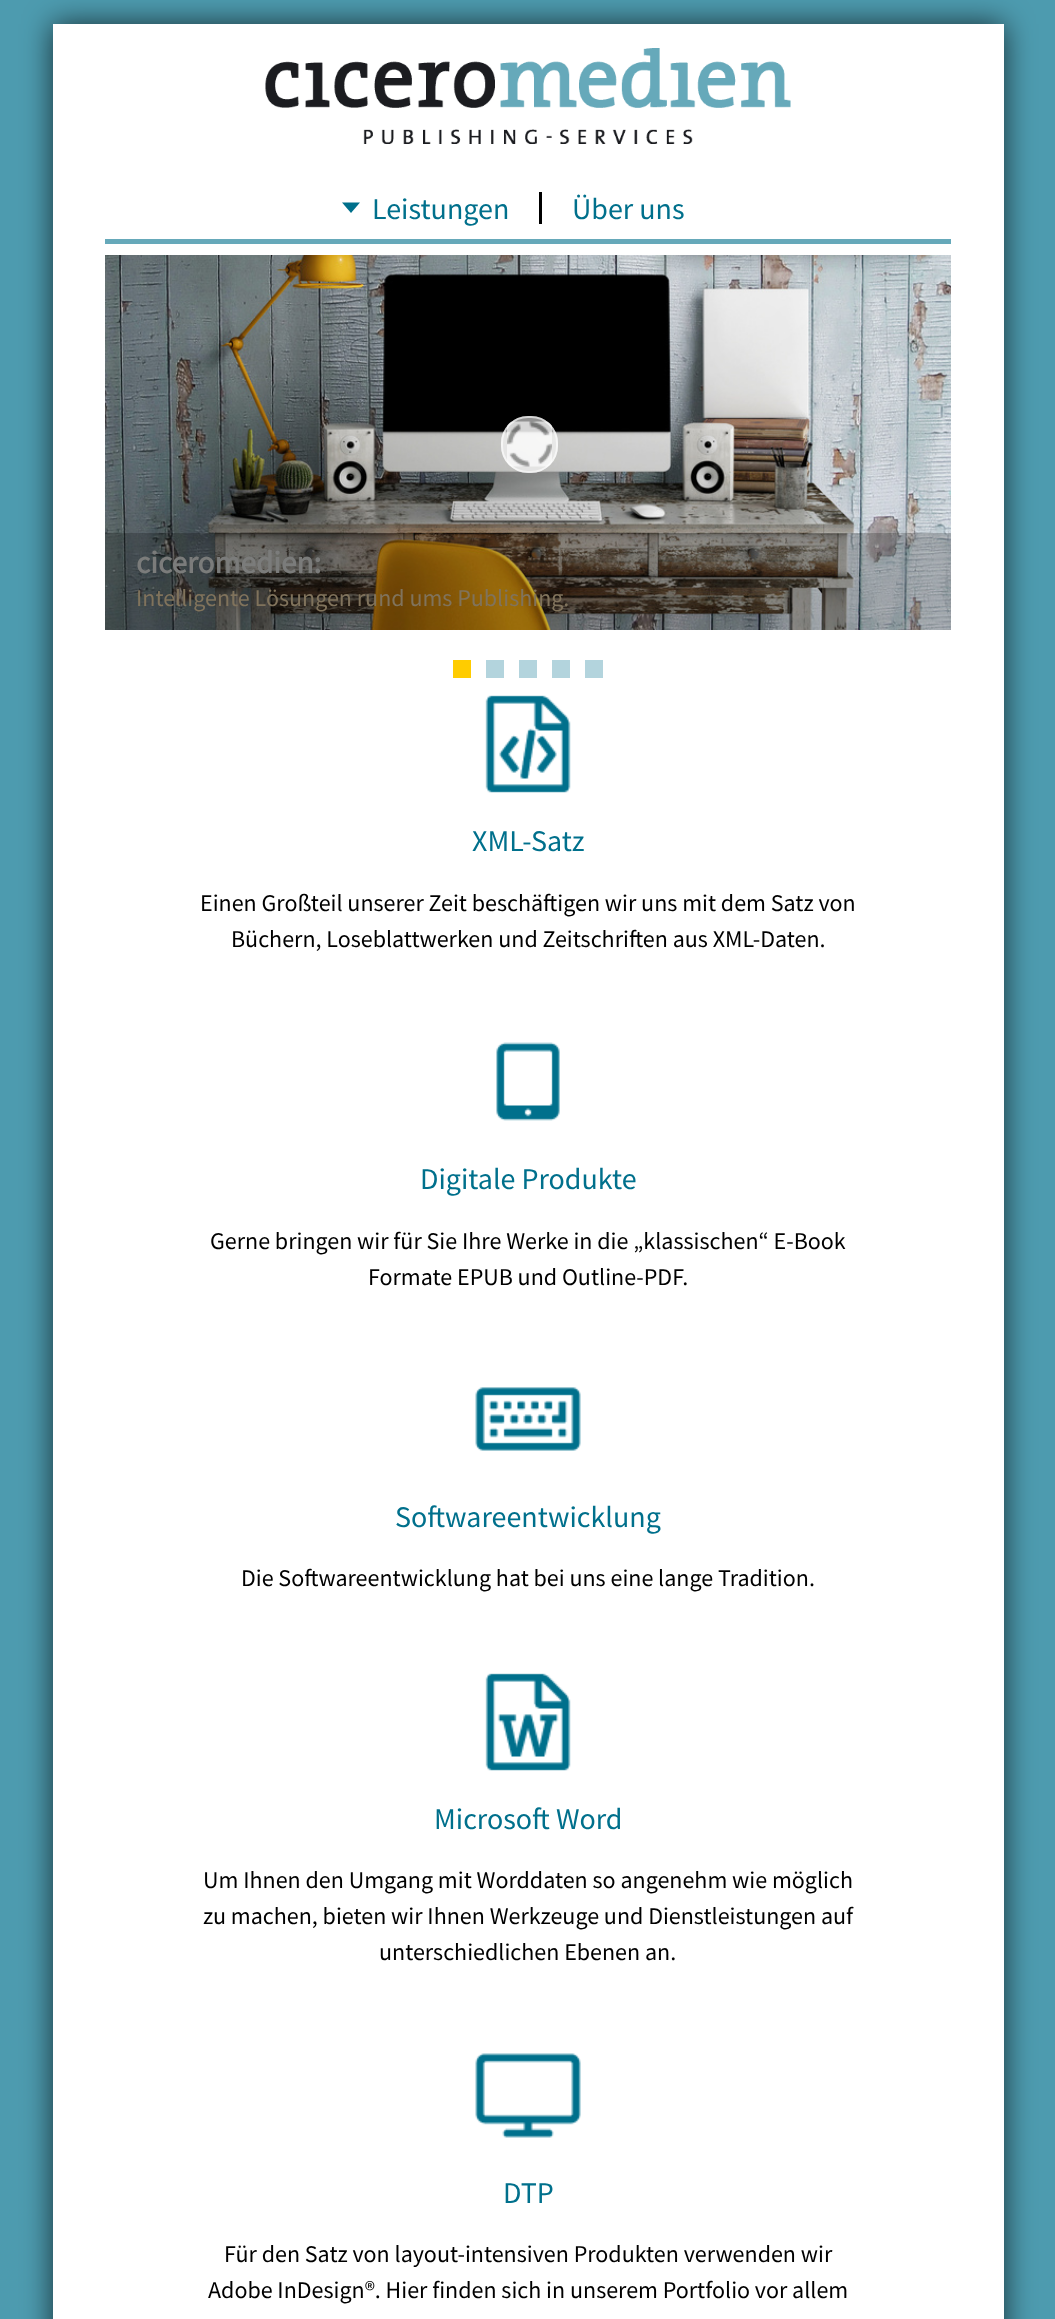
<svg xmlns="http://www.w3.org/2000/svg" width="1055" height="2319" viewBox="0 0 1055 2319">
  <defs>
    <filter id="blur1" x="-50%" y="-200%" width="200%" height="500%"><feGaussianBlur stdDeviation="15"/></filter>
  </defs>
  <rect width="100%" height="100%" fill="#4d9baf"/>
  <rect x="53" y="24" width="951" height="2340" fill="#000000" fill-opacity="0.7" filter="url(#blur1)"/>
  <rect x="53" y="24" width="951" height="2295" fill="#ffffff"/>
  <image x="265" y="48" width="526" height="96" href="img1.png"/>
  <rect x="105" y="239" width="846" height="5" fill="#66a9ba"/>
  <rect x="539" y="192" width="3" height="32" fill="#000000"/>
  <path d="M342 202.5H360L351 213Z" fill="#00708c"/>
  <text x="372" y="219" font-family="Source Sans Pro" font-size="30" fill="#00708c">Leistungen</text>
  <text x="572" y="219" font-family="Source Sans Pro" font-size="30" fill="#00708c">Über uns</text>
  <image x="105" y="255" width="846" height="375" href="img3.png"/>
  <rect x="501" y="416" width="57" height="57" rx="27" fill="#ffffff" fill-opacity="0.57"/>
  <image x="507" y="421" width="45" height="46" href="img2.png"/>
  <rect x="502" y="417" width="55" height="55" rx="26" fill="none" stroke="#ffffff" stroke-opacity="0.63" stroke-width="2"/>
  <rect x="105" y="533" width="846" height="97" fill="#000000" fill-opacity="0.21"/>
  <text x="136" y="573" font-family="Source Sans Pro" font-size="31.25" font-weight="bold" fill="#7b7c7b">ciceromedien:</text>
  <text x="136" y="606" font-family="Source Sans Pro" font-size="24" fill="#80735c">Intelligente Lösungen rund ums Publishing.</text>
  <rect x="453" y="660" width="18" height="18" fill="#ffcc00"/>
  <rect x="486" y="660" width="18" height="18" fill="#b3d4dd"/>
  <rect x="519" y="660" width="18" height="18" fill="#b3d4dd"/>
  <rect x="552" y="660" width="18" height="18" fill="#b3d4dd"/>
  <rect x="585" y="660" width="18" height="18" fill="#b3d4dd"/>
  <image x="485" y="695" width="86" height="98" href="img4.png"/>
  <text x="472" y="851" font-family="Source Sans Pro" font-size="30" fill="#00708c">XML-Satz</text>
  <text x="200" y="911" font-family="Source Sans Pro" font-size="24" fill="#000000">Einen Großteil unserer Zeit beschäftigen wir uns mit dem Satz von</text>
  <text x="231" y="947" font-family="Source Sans Pro" font-size="24" fill="#000000">Büchern, Loseblattwerken und Zeitschriften aus XML-Daten.</text>
  <image x="496" y="1042" width="64" height="79" href="img5.png"/>
  <text x="420" y="1189" font-family="Source Sans Pro" font-size="30" fill="#00708c">Digitale Produkte</text>
  <text x="210" y="1249" font-family="Source Sans Pro" font-size="24" fill="#000000">Gerne bringen wir für Sie Ihre Werke in die „klassischen“ E-Book</text>
  <text x="368" y="1285" font-family="Source Sans Pro" font-size="24" fill="#000000">Formate EPUB und Outline-PDF.</text>
  <image x="475" y="1387" width="106" height="64" href="img6.png"/>
  <text x="395" y="1527" font-family="Source Sans Pro" font-size="30" fill="#00708c">Softwareentwicklung</text>
  <text x="241" y="1586" font-family="Source Sans Pro" font-size="24" fill="#000000">Die Softwareentwicklung hat bei uns eine lange Tradition.</text>
  <image x="485" y="1673" width="86" height="98" href="img7.png"/>
  <text x="434" y="1829" font-family="Source Sans Pro" font-size="30" fill="#00708c">Microsoft Word</text>
  <text x="203" y="1888" font-family="Source Sans Pro" font-size="24" fill="#000000">Um Ihnen den Umgang mit Worddaten so angenehm wie möglich</text>
  <text x="203" y="1924" font-family="Source Sans Pro" font-size="24" fill="#000000">zu machen, bieten wir Ihnen Werkzeuge und Dienstleistungen auf</text>
  <text x="379" y="1960" font-family="Source Sans Pro" font-size="24" fill="#000000">unterschiedlichen Ebenen an.</text>
  <image x="475" y="2053" width="106" height="85" href="img8.png"/>
  <text x="503" y="2203" font-family="Source Sans Pro" font-size="30" fill="#00708c">DTP</text>
  <text x="224" y="2262" font-family="Source Sans Pro" font-size="24" fill="#000000">Für den Satz von layout-intensiven Produkten verwenden wir</text>
  <text x="208" y="2298" font-family="Source Sans Pro" font-size="24" fill="#000000">Adobe InDesign®. Hier finden sich in unserem Portfolio vor allem</text>
</svg>
